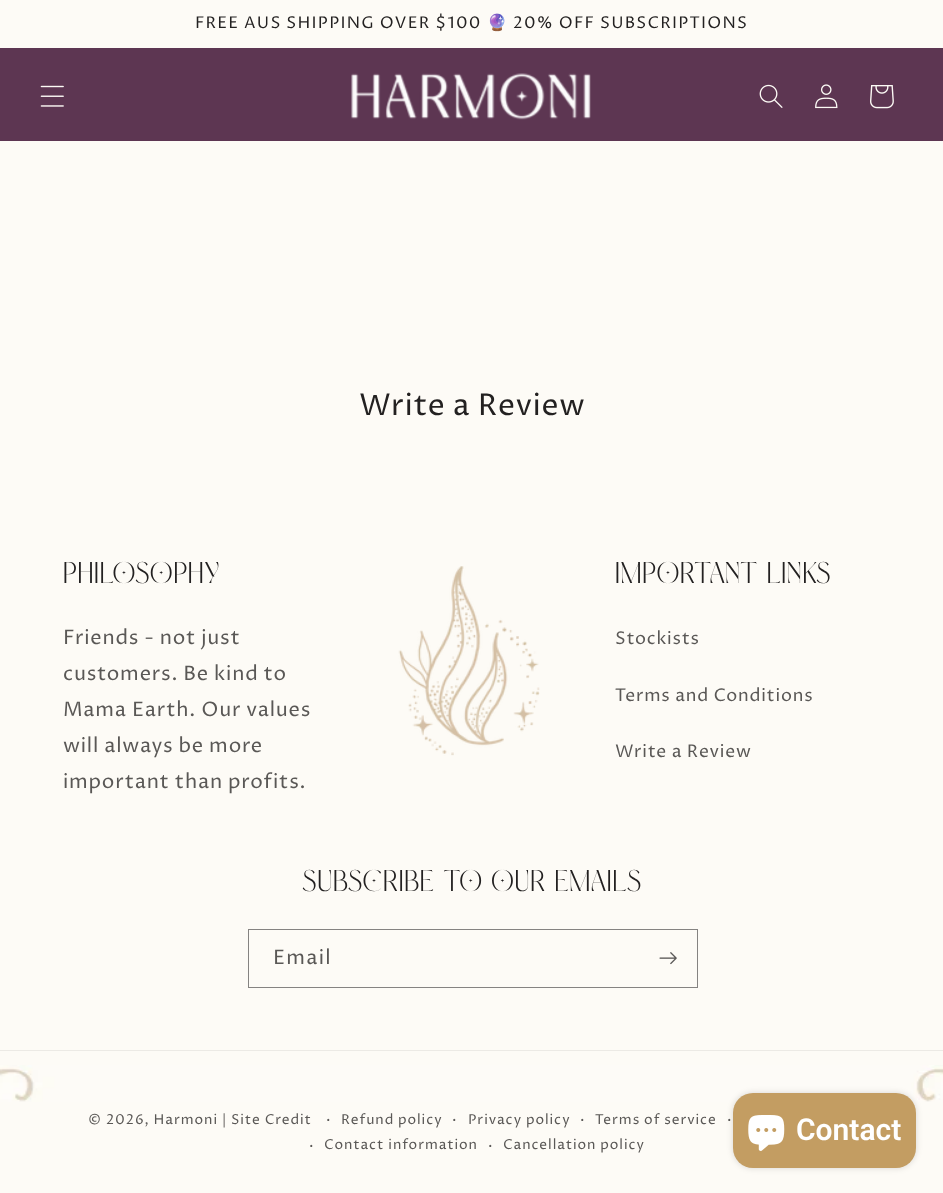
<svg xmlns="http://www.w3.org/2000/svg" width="943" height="1193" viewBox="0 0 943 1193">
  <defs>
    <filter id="blur1" x="-50%" y="-200%" width="200%" height="500%"><feGaussianBlur stdDeviation="3"/></filter>
  </defs>
  <rect width="100%" height="100%" fill="#fdfbf6"/>
  <text x="195" y="28" font-family="Proza Libre" font-size="16.25" letter-spacing="1.25" fill="#232121">FREE AUS SHIPPING OVER $100</text>
  <text x="487" y="28" font-family="Noto Color Emoji" font-size="16.25" letter-spacing="1.25" fill="#232121">🔮</text>
  <text x="513" y="28" font-family="Proza Libre" font-size="16.25" letter-spacing="1.25" fill="#232121">20% OFF SUBSCRIPTIONS</text>
  <rect x="0" y="48" width="943" height="93" fill="#5d3652"/>
  <image x="40" y="85" width="24" height="22" href="img1.png"/>
  <image x="351" y="73" width="240" height="47" href="img2.png"/>
  <image x="759" y="84" width="24" height="24" href="img3.png"/>
  <image x="815" y="84" width="23" height="25" href="img4.png"/>
  <image x="870" y="85" width="24" height="24" href="img5.png"/>
  <text x="359" y="415" font-family="Proza Libre" font-size="30" letter-spacing="0.75" fill="#232121">Write a Review</text>
  <image x="0" y="1065" width="943" height="37" href="img6.png"/>
  <text x="63" y="583" font-family="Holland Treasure" font-size="30" letter-spacing="0.75" fill="#232121">PHILOSOPHY</text>
  <text x="63" y="644" font-family="Proza Libre" font-size="20" letter-spacing="0.75" fill="#5a5856">Friends - not just</text>
  <text x="63" y="680" font-family="Proza Libre" font-size="20" letter-spacing="0.75" fill="#5a5856">customers. Be kind to</text>
  <text x="63" y="716" font-family="Proza Libre" font-size="20" letter-spacing="0.75" fill="#5a5856">Mama Earth. Our values</text>
  <text x="63" y="752" font-family="Proza Libre" font-size="20" letter-spacing="0.75" fill="#5a5856">will always be more</text>
  <text x="63" y="788" font-family="Proza Libre" font-size="20" letter-spacing="0.75" fill="#5a5856">important than profits.</text>
  <image x="398" y="566" width="142" height="190" href="img7.png"/>
  <text x="615" y="583" font-family="Holland Treasure" font-size="30" letter-spacing="0.75" fill="#232121">IMPORTANT LINKS</text>
  <text x="615" y="644" font-family="Proza Libre" font-size="17.5" letter-spacing="0.75" fill="#5a5856">Stockists</text>
  <text x="615" y="701" font-family="Proza Libre" font-size="17.5" letter-spacing="0.75" fill="#5a5856">Terms and Conditions</text>
  <text x="615" y="757" font-family="Proza Libre" font-size="17.5" letter-spacing="0.75" fill="#5a5856">Write a Review</text>
  <text x="302" y="891" font-family="Holland Treasure" font-size="30" letter-spacing="0.75" fill="#232121">SUBSCRIBE TO OUR EMAILS</text>
  <rect x="248.5" y="929.5" width="449" height="58" fill="none" stroke="#858381"/>
  <text x="273" y="964" font-family="Proza Libre" font-size="20" letter-spacing="1.25" fill="#5a5856">Email</text>
  <image x="659" y="952" width="18" height="13" href="img8.png"/>
  <rect x="0" y="1050" width="943" height="1" fill="#eceae5"/>
  <text x="88" y="1124" font-family="Proza Libre" font-size="13.75" letter-spacing="0.9" fill="#5a5856">© 2026, Harmoni | Site Credit</text>
  <text x="326" y="1124" font-family="Proza Libre" font-size="15" letter-spacing="0.9" fill="#5a5856">·</text>
  <text x="341" y="1124" font-family="Proza Libre" font-size="13.75" letter-spacing="0.9" fill="#5a5856">Refund policy</text>
  <text x="452" y="1124" font-family="Proza Libre" font-size="15" letter-spacing="0.9" fill="#5a5856">·</text>
  <text x="468" y="1124" font-family="Proza Libre" font-size="13.75" letter-spacing="0.9" fill="#5a5856">Privacy policy</text>
  <text x="580" y="1124" font-family="Proza Libre" font-size="15" letter-spacing="0.9" fill="#5a5856">·</text>
  <text x="595" y="1124" font-family="Proza Libre" font-size="13.75" letter-spacing="0.9" fill="#5a5856">Terms of service</text>
  <text x="727" y="1124" font-family="Proza Libre" font-size="15" letter-spacing="0.9" fill="#5a5856">·</text>
  <text x="309" y="1150" font-family="Proza Libre" font-size="15" letter-spacing="0.9" fill="#5a5856">·</text>
  <text x="324" y="1149" font-family="Proza Libre" font-size="13.75" letter-spacing="0.9" fill="#5a5856">Contact information</text>
  <text x="488" y="1150" font-family="Proza Libre" font-size="15" letter-spacing="0.9" fill="#5a5856">·</text>
  <text x="503" y="1149" font-family="Proza Libre" font-size="13.75" letter-spacing="0.9" fill="#5a5856">Cancellation policy</text>
  <rect x="733" y="1093" width="183" height="75" rx="20" fill="#000000" fill-opacity="0.15" filter="url(#blur1)"/>
  <rect x="733" y="1093" width="183" height="75" rx="20" fill="#c39d62"/>
  <image x="748" y="1115" width="37" height="36" href="img9.png"/>
  <text x="796" y="1140" font-family="Roboto" font-size="30" font-weight="600" fill="#ffffff">Contact</text>
</svg>
